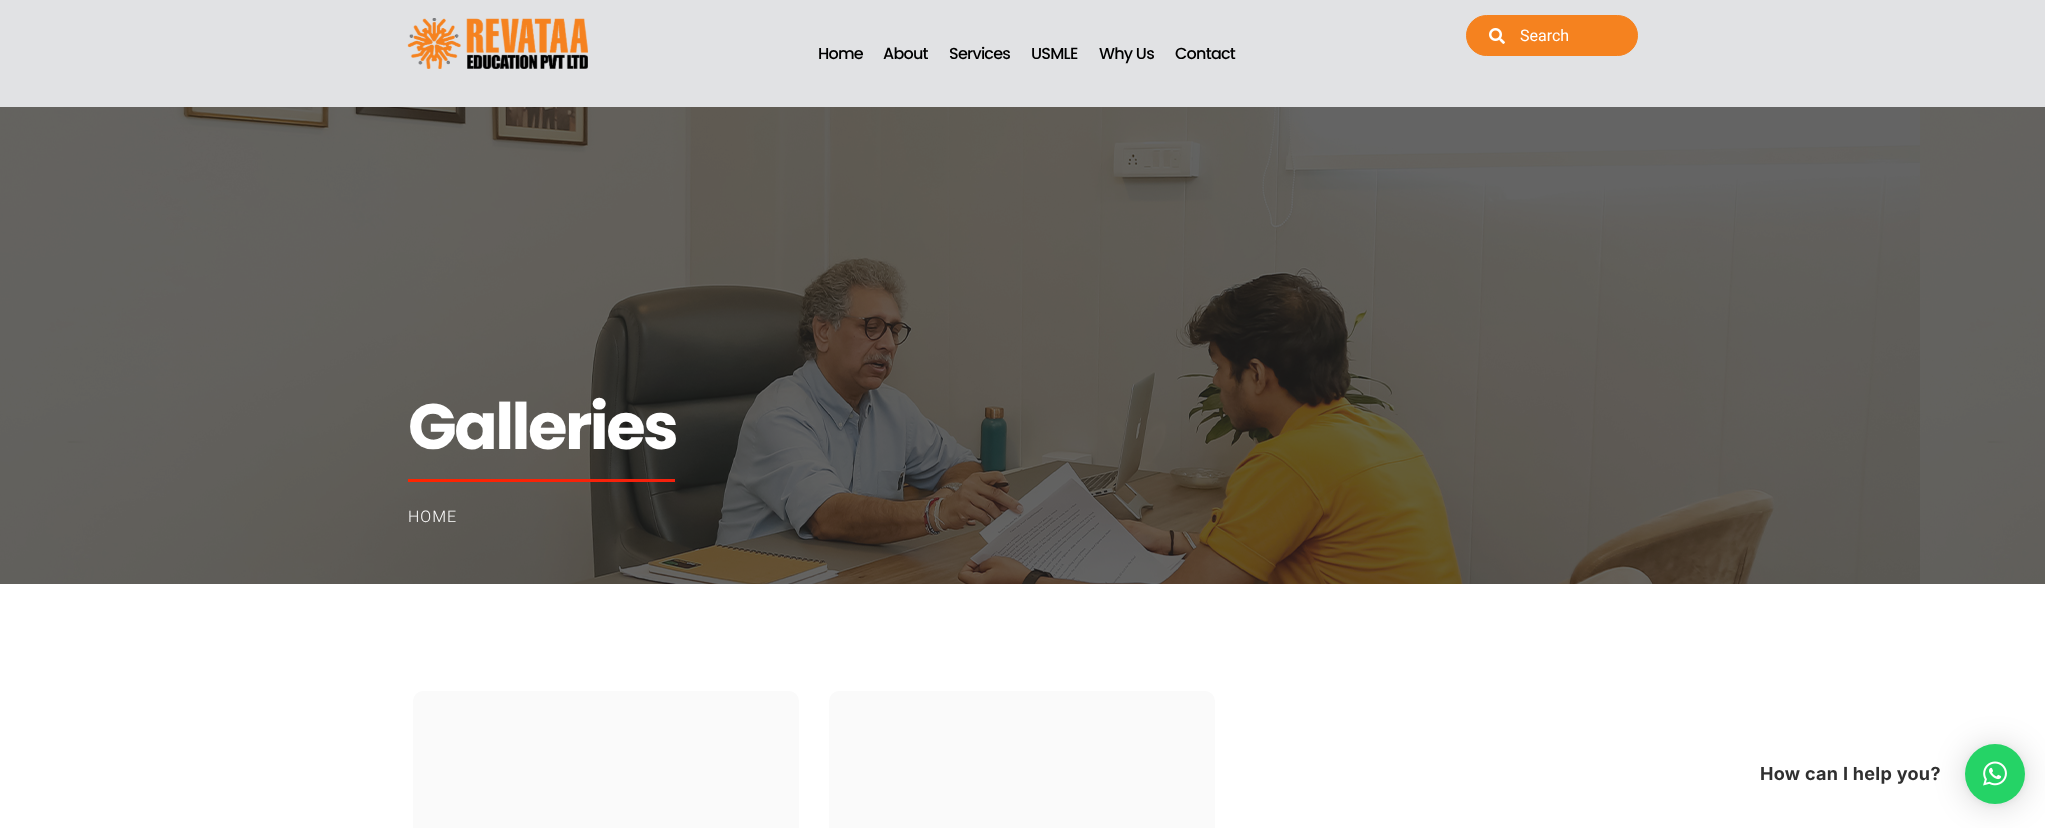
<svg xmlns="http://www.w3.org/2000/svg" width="2045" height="828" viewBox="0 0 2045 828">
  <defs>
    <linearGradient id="g1" gradientUnits="userSpaceOnUse" x1="1147" y1="-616" x2="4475" y2="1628"><stop offset="0" stop-color="#ff2400"/><stop offset="0.12" stop-color="#e81d1d"/><stop offset="0.25" stop-color="#e8b71d"/><stop offset="0.38" stop-color="#e3e81d"/><stop offset="0.5" stop-color="#1de840"/><stop offset="0.62" stop-color="#1ddde8"/><stop offset="0.75" stop-color="#2b1de8"/><stop offset="0.88" stop-color="#dd00f3"/><stop offset="1" stop-color="#dd00f3"/></linearGradient>
    <filter id="blur1" x="-50%" y="-200%" width="200%" height="500%"><feGaussianBlur stdDeviation="16"/></filter>
    <filter id="blur2" x="-50%" y="-200%" width="200%" height="500%"><feGaussianBlur stdDeviation="3"/></filter>
  </defs>
  <rect width="100%" height="100%" fill="#ffffff"/>
  <rect x="0" y="0" width="2045" height="107" fill="#e1e2e4"/>
  <image x="407" y="18" width="181" height="51" href="img1.png"/>
  <rect x="1466.5" y="15.5" width="171" height="40" rx="20" fill="#f5821f" stroke="#f5821f"/>
  <image x="1489" y="28" width="16" height="16" href="img2.png"/>
  <text x="1520" y="41" font-family="Roboto" font-size="16" fill="#ffffff">Search</text>
  <text x="818" y="59" font-family="Poppins" font-size="16" font-weight="500" letter-spacing="-0.75" fill="#000000">Home</text>
  <text x="883" y="59" font-family="Poppins" font-size="16" font-weight="500" letter-spacing="-0.75" fill="#000000">About</text>
  <text x="949" y="59" font-family="Poppins" font-size="16" font-weight="500" letter-spacing="-0.75" fill="#000000">Services</text>
  <text x="1031" y="59" font-family="Poppins" font-size="16" font-weight="500" letter-spacing="-0.75" fill="#000000">USMLE</text>
  <text x="1099" y="59" font-family="Poppins" font-size="16" font-weight="500" letter-spacing="-0.75" fill="#000000">Why Us</text>
  <text x="1175" y="59" font-family="Poppins" font-size="16" font-weight="500" letter-spacing="-0.75" fill="#000000">Contact</text>
  <rect x="0" y="107" width="2045" height="477" fill="#222222"/>
  <image x="0" y="107" width="2045" height="477" href="img3.png"/>
  <text x="408" y="449" font-family="Poppins" font-size="64" font-weight="bold" letter-spacing="-2.5" fill="#ffffff">Galleries</text>
  <rect x="408" y="479" width="267" height="3" fill="url(#g1)"/>
  <text x="408" y="522" font-family="Roboto" font-size="16" font-weight="300" letter-spacing="1" fill="#ffffff">HOME</text>
  <rect x="413" y="691" width="386" height="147" rx="10" fill="#fafafa"/>
  <rect x="829" y="691" width="386" height="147" rx="10" fill="#fafafa"/>
  <rect x="1965" y="746" width="60" height="60" rx="30" fill="#000000" fill-opacity="0.16" filter="url(#blur1)"/>
  <rect x="1965" y="745" width="60" height="60" rx="30" fill="#000000" fill-opacity="0.06" filter="url(#blur2)"/>
  <circle cx="1995" cy="774" r="30" fill="#25d366"/>
  <text x="1760" y="780" font-family="Inter" font-size="18" font-weight="bold" letter-spacing="0.3" fill="#303030">How can I help you?</text>
  <image x="1983" y="761" width="24" height="25" href="img4.png"/>
</svg>
